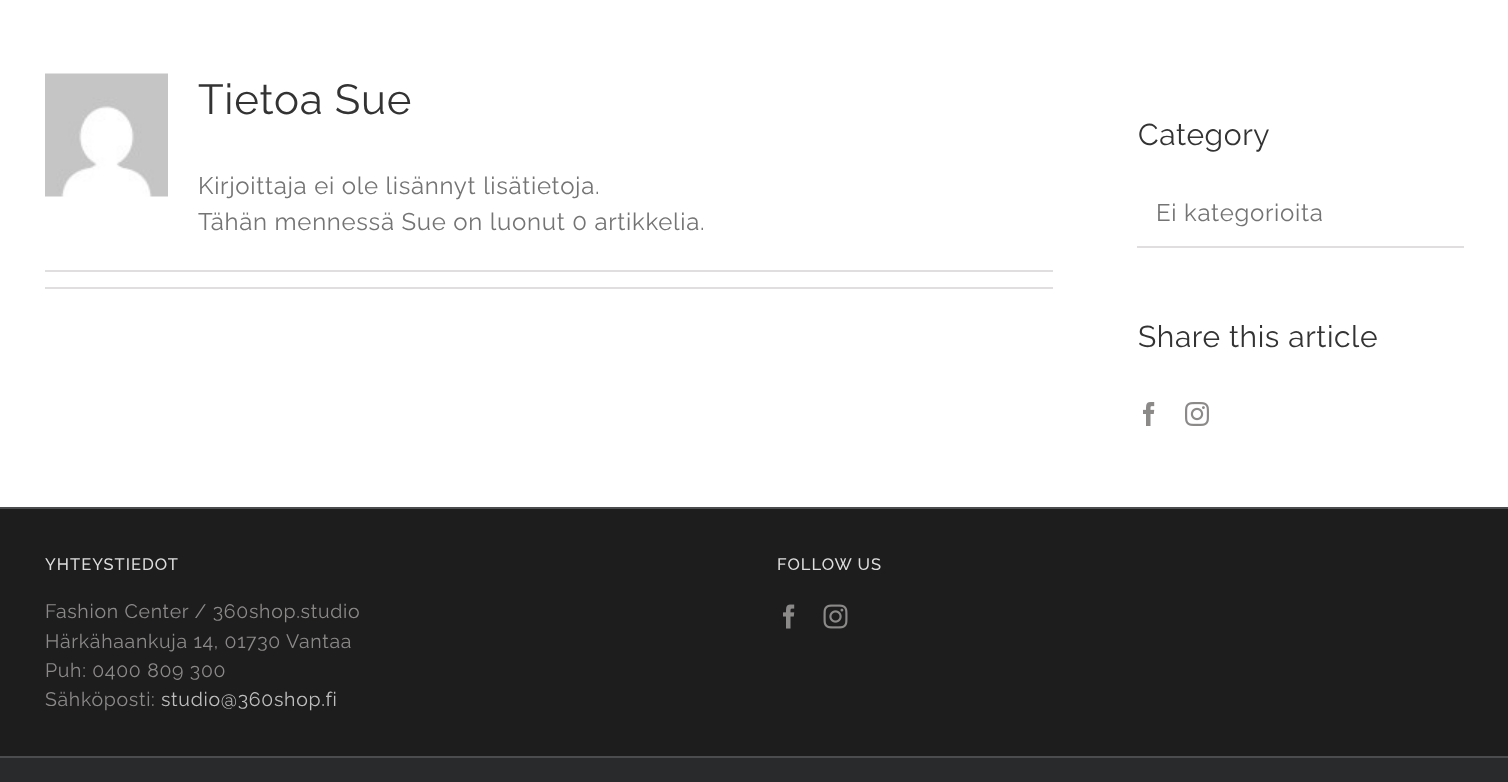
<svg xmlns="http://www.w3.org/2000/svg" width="1508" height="782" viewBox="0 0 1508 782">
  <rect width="100%" height="100%" fill="#ffffff"/>
  <image x="45" y="73" width="123" height="124" href="img1.png"/>
  <text x="198" y="114" font-family="Raleway" font-size="42" letter-spacing="0.75" fill="#333333">Tietoa Sue</text>
  <text x="198" y="194" font-family="Raleway" font-size="24" letter-spacing="0.7" fill="#747474">Kirjoittaja ei ole lisännyt lisätietoja.</text>
  <text x="198" y="230" font-family="Raleway" font-size="24" letter-spacing="0.7" fill="#747474">Tähän mennessä Sue on luonut 0 artikkelia.</text>
  <rect x="45" y="270" width="1008" height="2" fill="#e0dede"/>
  <rect x="45" y="287" width="1008" height="2" fill="#e0dede"/>
  <text x="1138" y="145" font-family="Raleway" font-size="30" letter-spacing="0.6" fill="#333333">Category</text>
  <rect x="1137" y="246" width="327" height="2" fill="#e0dede"/>
  <text x="1156" y="221" font-family="Raleway" font-size="24" letter-spacing="0.7" fill="#747474">Ei kategorioita</text>
  <text x="1138" y="347" font-family="Raleway" font-size="30" letter-spacing="0.6" fill="#333333">Share this article</text>
  <image x="1143" y="402" width="12" height="24" href="img2.png"/>
  <image x="1185" y="402" width="24" height="24" href="img3.png"/>
  <rect x="0" y="509" width="1508" height="247" fill="#1d1d1d"/>
  <rect x="0" y="507" width="1508" height="2" fill="#4b4c4d"/>
  <text x="45" y="570" font-family="Raleway" font-size="16.5" font-weight="500" letter-spacing="1" fill="#dddddd">YHTEYSTIEDOT</text>
  <text x="45" y="618" font-family="Raleway" font-size="19.5" letter-spacing="0.7" fill="#8c8989">Fashion Center / 360shop.studio</text>
  <text x="45" y="648" font-family="Raleway" font-size="19.5" letter-spacing="0.7" fill="#8c8989">Härkähaankuja 14, 01730 Vantaa</text>
  <text x="45" y="677" font-family="Raleway" font-size="19.5" letter-spacing="0.7" fill="#8c8989">Puh: 0400 809 300</text>
  <text x="45" y="706" font-family="Raleway" font-size="19.5" letter-spacing="0.7" fill="#8c8989">Sähköposti:</text>
  <text x="161" y="706" font-family="Raleway" font-size="19.5" letter-spacing="0.7" fill="#bfbfbf">studio@360shop.fi</text>
  <text x="777" y="570" font-family="Raleway" font-size="16.5" font-weight="500" letter-spacing="1" fill="#dddddd">FOLLOW US</text>
  <image x="783" y="604" width="12" height="25" href="img4.png"/>
  <image x="823" y="604" width="25" height="25" href="img5.png"/>
  <rect x="0" y="758" width="1508" height="24" fill="#282a2b"/>
  <rect x="0" y="756" width="1508" height="2" fill="#4b4c4d"/>
</svg>
